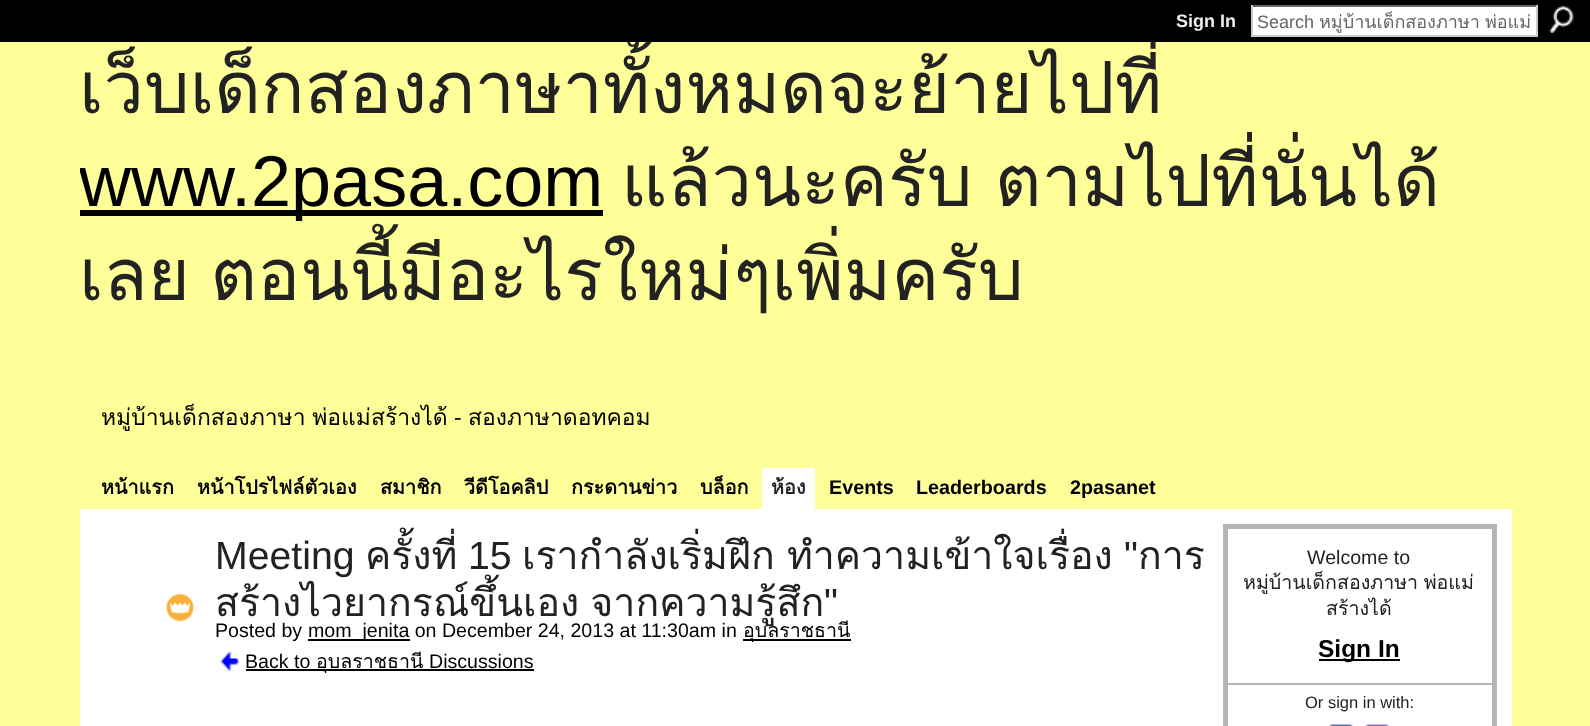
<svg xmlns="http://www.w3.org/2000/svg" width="1590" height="726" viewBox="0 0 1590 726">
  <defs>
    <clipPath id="clip1"><rect x="80" y="42" width="1432" height="288"/></clipPath>
  </defs>
  <rect width="100%" height="100%" fill="#ffff99"/>
  <rect x="0" y="0" width="1590" height="42" fill="#000000"/>
  <text x="1176" y="27" font-family="Liberation Sans" font-size="18" font-weight="bold" fill="#eeeeee">Sign In</text>
  <rect x="1253" y="7" width="283" height="28" fill="#ffffff"/>
  <rect x="1251" y="5" width="287" height="2" fill="#666666"/>
  <rect x="1536" y="5" width="2" height="31" fill="#cccccc"/>
  <rect x="1251" y="35" width="287" height="2" fill="#cccccc"/>
  <rect x="1251" y="5" width="2" height="31" fill="#cccccc"/>
  <text x="1257" y="28" font-family="Liberation Sans" font-size="18" fill="#666666">Search</text>
  <text x="1319" y="28" word-spacing="-1" font-family="Loma" font-size="18" fill="#666666">หมู่บ้านเด็กสองภาษา พ่อแม่</text>
  <image x="1549" y="6" width="25" height="27" href="img1.png"/>
  <g clip-path="url(#clip1)">
    <text x="79" y="113" font-family="Loma" font-size="72" fill="#222222">เว็บเด็กสองภาษาทั้งหมดจะย้ายไปที่</text>
  </g>
  <rect x="80" y="210" width="523" height="6" fill="#000000"/>
  <g clip-path="url(#clip1)">
    <text x="79" y="206" font-family="Liberation Sans" font-size="72" fill="#000000">www.2pasa.com</text>
  </g>
  <text x="621" y="206" word-spacing="-2" font-family="Loma" font-size="72" fill="#222222">แล้วนะครับ ตามไปที่นั่นได้</text>
  <text x="79" y="300" word-spacing="-4" font-family="Loma" font-size="72" fill="#222222">เลย ตอนนี้มีอะไรใหม่ๆเพิ่มครับ</text>
  <text x="101" y="425" word-spacing="-1" font-family="Loma" font-size="22.9" fill="#000000">หมู่บ้านเด็กสองภาษา พ่อแม่สร้างได้</text>
  <text x="454" y="425" font-family="Liberation Sans" font-size="22.9" fill="#000000">-</text>
  <text x="468" y="425" font-family="Loma" font-size="22.9" fill="#000000">สองภาษาดอทคอม</text>
  <text x="101" y="494" font-family="Loma" font-size="19.75" font-weight="bold" fill="#000000">หน้าแรก</text>
  <text x="197" y="494" font-family="Loma" font-size="19.75" font-weight="bold" fill="#000000">หน้าโปรไฟล์ตัวเอง</text>
  <text x="380" y="494" font-family="Loma" font-size="19.75" font-weight="bold" fill="#000000">สมาชิก</text>
  <text x="464" y="494" font-family="Loma" font-size="19.75" font-weight="bold" fill="#000000">วีดีโอคลิป</text>
  <text x="571" y="494" font-family="Loma" font-size="19.75" font-weight="bold" fill="#000000">กระดานข่าว</text>
  <text x="700" y="494" font-family="Loma" font-size="19.75" font-weight="bold" fill="#000000">บล็อก</text>
  <rect x="762" y="468" width="53" height="41" fill="#ffffff"/>
  <text x="771" y="494" font-family="Loma" font-size="19.75" font-weight="bold" fill="#222222">ห้อง</text>
  <text x="829" y="494" font-family="Liberation Sans" font-size="19.75" font-weight="bold" fill="#000000">Events</text>
  <text x="916" y="494" font-family="Liberation Sans" font-size="19.75" font-weight="bold" fill="#000000">Leaderboards</text>
  <text x="1070" y="494" font-family="Liberation Sans" font-size="19.75" font-weight="bold" fill="#000000">2pasanet</text>
  <rect x="80" y="509" width="1432" height="217" fill="#ffffff"/>
  <image x="166" y="593" width="28" height="29" href="img2.png"/>
  <text x="215" y="569" font-family="Liberation Sans" font-size="39.25" fill="#222222">Meeting</text>
  <text x="365" y="569" font-family="Loma" font-size="39.25" fill="#222222">ครั้งที่</text>
  <text x="468" y="569" font-family="Liberation Sans" font-size="39.25" fill="#222222">15</text>
  <text x="522" y="569" word-spacing="-1" font-family="Loma" font-size="39.25" fill="#222222">เรากำลังเริ่มฝึก ทำความเข้าใจเรื่อง</text>
  <text x="1124" y="569" font-family="Liberation Sans" font-size="39.25" fill="#222222">"</text>
  <text x="1138" y="569" font-family="Loma" font-size="39.25" fill="#222222">การ</text>
  <text x="215" y="616" word-spacing="-2" font-family="Loma" font-size="39.25" fill="#222222">สร้างไวยากรณ์ขึ้นเอง จากความรู้สึก</text>
  <text x="824" y="616" font-family="Liberation Sans" font-size="39.25" fill="#222222">"</text>
  <text x="215" y="637" font-family="Liberation Sans" font-size="19.6" fill="#000000">Posted by</text>
  <rect x="308" y="639" width="102" height="2" fill="#000000"/>
  <text x="308" y="637" font-family="Liberation Sans" font-size="19.6" fill="#000000">mom_jenita on December 24, 2013 at 11:30am in</text>
  <rect x="743" y="639" width="108" height="2" fill="#000000"/>
  <text x="743" y="637" font-family="Loma" font-size="19.6" fill="#000000">อุบลราชธานี</text>
  <image x="220" y="651" width="19" height="21" href="img3.png"/>
  <text x="245" y="668" font-family="Liberation Sans" font-size="19.6" fill="#000000">Back to</text>
  <rect x="246" y="669" width="288" height="2" fill="#000000"/>
  <text x="316" y="668" font-family="Loma" font-size="19.6" fill="#000000">อุบลราชธานี</text>
  <text x="429" y="668" font-family="Liberation Sans" font-size="19.6" fill="#000000">Discussions</text>
  <rect x="1225.5" y="526.5" width="269" height="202" fill="none" stroke="#b5b5b5" stroke-width="5"/>
  <text x="1307" y="564" font-family="Liberation Sans" font-size="19.6" fill="#222222">Welcome to</text>
  <text x="1243" y="589" word-spacing="-1" font-family="Loma" font-size="19.6" fill="#222222">หมู่บ้านเด็กสองภาษา พ่อแม่</text>
  <text x="1326" y="615" font-family="Loma" font-size="19.6" fill="#222222">สร้างได้</text>
  <rect x="1319" y="659" width="81" height="2" fill="#000000"/>
  <text x="1318" y="657" font-family="Liberation Sans" font-size="24.5" font-weight="bold" fill="#000000">Sign In</text>
  <rect x="1227" y="683" width="266" height="2" fill="#b5b5b5"/>
  <text x="1305" y="708" font-family="Liberation Sans" font-size="16.5" fill="#222222">Or sign in with:</text>
  <image x="1329" y="724" width="24" height="2" href="img4.png"/>
  <image x="1365" y="724" width="24" height="2" href="img5.png"/>
</svg>
